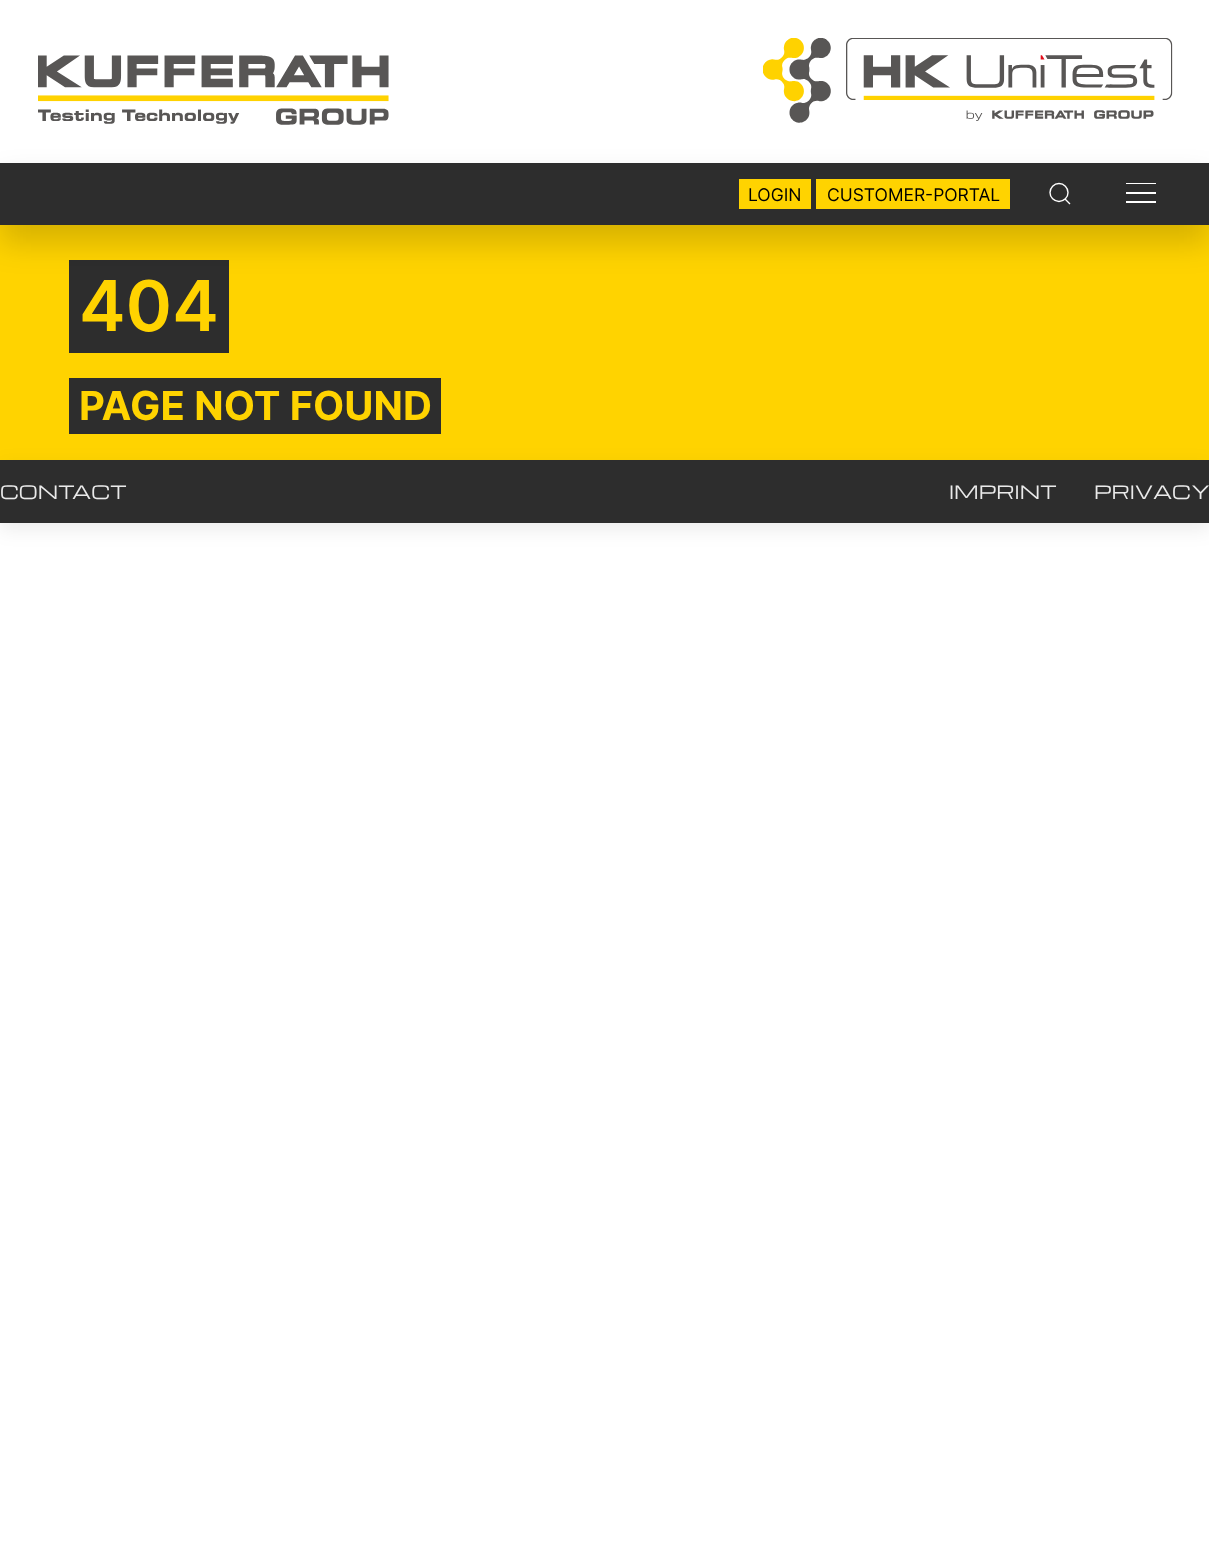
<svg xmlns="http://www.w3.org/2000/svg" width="1209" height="1559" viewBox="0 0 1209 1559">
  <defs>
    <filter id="blur1" x="-50%" y="-200%" width="200%" height="500%"><feGaussianBlur stdDeviation="15.5"/></filter>
    <filter id="blur2" x="-50%" y="-200%" width="200%" height="500%"><feGaussianBlur stdDeviation="9.5"/></filter>
  </defs>
  <rect width="100%" height="100%" fill="#ffffff"/>
  <image x="38" y="55" width="351" height="70" href="img1.png"/>
  <image x="763" y="38" width="410" height="85" href="img2.png"/>
  <rect x="0" y="225" width="1209" height="235" fill="#ffd300"/>
  <rect x="69" y="260" width="160" height="93" fill="#2d2d2d"/>
  <rect x="0" y="180" width="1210" height="63" fill="#000000" fill-opacity="0.16" filter="url(#blur1)"/>
  <rect x="0" y="163" width="1209" height="62" fill="#2d2d2d"/>
  <rect x="739" y="179" width="72" height="30" fill="#ffd300"/>
  <text x="748" y="201" font-family="Inter" font-size="17.5" fill="#000000">LOGIN</text>
  <rect x="816" y="179" width="194" height="30" fill="#ffd300"/>
  <text x="827" y="201" font-family="Inter" font-size="17.5" fill="#000000">CUSTOMER-PORTAL</text>
  <circle cx="1059" cy="192.5" r="9" fill="none" stroke="#ffffff" stroke-width="1.4"/>
  <path d="M1065 199L1070 204Z" fill="none" stroke="#ffffff" stroke-width="1.4"/>
  <rect x="1126" y="183" width="30" height="1" fill="#ffffff"/>
  <rect x="1126" y="192" width="30" height="2" fill="#ffffff"/>
  <rect x="1126" y="201" width="30" height="2" fill="#ffffff"/>
  <text x="79" y="331" font-family="Inter" font-size="70" font-weight="600" fill="#ffd300">404</text>
  <rect x="69" y="378" width="372" height="56" fill="#2d2d2d"/>
  <text x="79" y="420" font-family="Inter" font-size="40" font-weight="bold" fill="#ffd300">PAGE NOT FOUND</text>
  <rect x="0" y="466" width="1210" height="63" fill="#000000" fill-opacity="0.08" filter="url(#blur2)"/>
  <rect x="0" y="460" width="1209" height="63" fill="#2d2d2d"/>
  <text x="0" y="499" font-family="Michroma" font-size="18" fill="#eaeaea">CONTACT</text>
  <text x="949" y="499" font-family="Michroma" font-size="18" fill="#eaeaea">IMPRINT</text>
  <text x="1094" y="499" font-family="Michroma" font-size="18" fill="#eaeaea">PRIVACY</text>
</svg>
